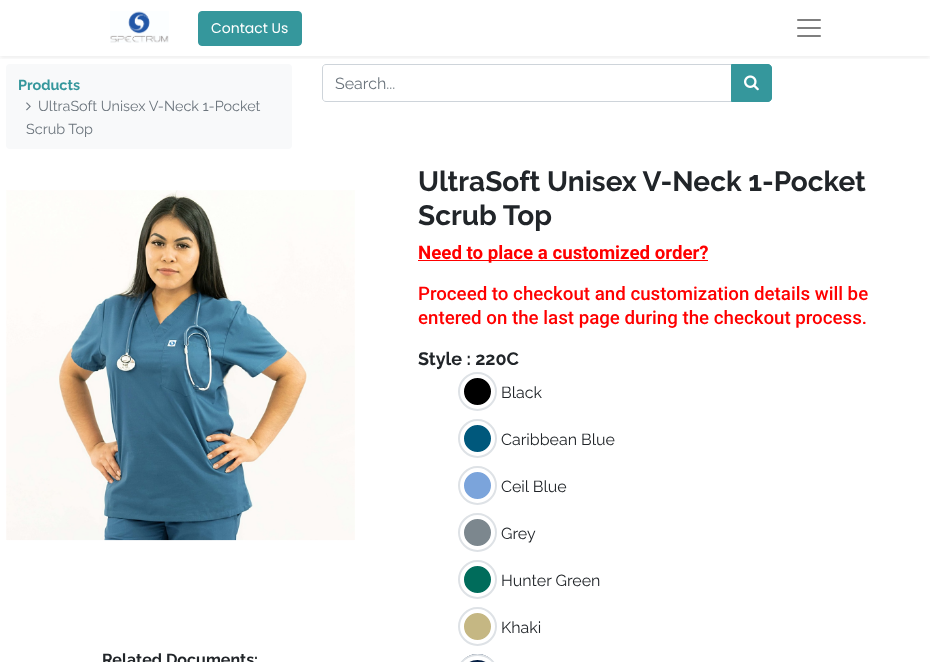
<svg xmlns="http://www.w3.org/2000/svg" width="930" height="662" viewBox="0 0 930 662">
  <defs>
    <clipPath id="clip1"><rect x="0" y="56" width="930" height="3"/></clipPath>
    <filter id="blur1" x="-50%" y="-200%" width="200%" height="500%"><feGaussianBlur stdDeviation="2"/></filter>
  </defs>
  <rect width="100%" height="100%" fill="#ffffff"/>
  <rect x="6" y="64" width="286" height="85" rx="4" fill="#f8f9fa"/>
  <path d="M326 64.5H731.5V101.5H326C324 101.5 322.5 100 322.5 98V68C322.5 66 324 64.5 326 64.5Z" fill="none" stroke="#ced4da"/>
  <path d="M731.5 64.5H768C770 64.5 771.5 66 771.5 68V98C771.5 100 770 101.5 768 101.5H731.5Z" fill="#35979c" stroke="#35979c"/>
  <g clip-path="url(#clip1)">
    <rect x="0" y="2" width="930" height="56" fill="#000000" fill-opacity="0.07" filter="url(#blur1)"/>
  </g>
  <image x="110" y="11" width="59" height="32" href="img1.png"/>
  <rect x="198.5" y="11.5" width="103" height="34" rx="3.5" fill="#35979c" stroke="#35979c"/>
  <text x="211" y="33" font-family="Poppins" font-size="14" fill="#ffffff">Contact Us</text>
  <image x="797" y="19" width="24" height="18" href="img2.png"/>
  <text x="18" y="90" font-family="Raleway" font-size="14.4" font-weight="bold" fill="#35979c">Products</text>
  <image x="26" y="102" width="5" height="9" href="img3.png"/>
  <text x="38" y="111" font-family="Raleway" font-size="14.4" fill="#6c757d">UltraSoft Unisex V-Neck 1-Pocket</text>
  <text x="26" y="134" font-family="Raleway" font-size="14.4" fill="#6c757d">Scrub Top</text>
  <text x="335" y="89" font-family="Raleway" font-size="16" fill="#6c757d">Search...</text>
  <image x="744" y="75" width="15" height="16" href="img4.png"/>
  <text x="418" y="191" font-family="Raleway" font-size="28" font-weight="bold" fill="#212529">UltraSoft Unisex V-Neck 1-Pocket</text>
  <text x="418" y="225" font-family="Raleway" font-size="28" font-weight="bold" fill="#212529">Scrub Top</text>
  <rect x="418" y="260" width="290" height="1" fill="#ff0000"/>
  <text x="418" y="259" font-family="Roboto" font-size="18.7" font-weight="bold" fill="#ff0000">Need to place a customized order?</text>
  <text x="418" y="300" font-family="Roboto" font-size="18.7" font-weight="500" fill="#ff0000">Proceed to checkout and customization details will be</text>
  <text x="418" y="324" font-family="Roboto" font-size="18.7" font-weight="500" fill="#ff0000">entered on the last page during the checkout process.</text>
  <text x="418" y="365" font-family="Raleway" font-size="18" font-weight="bold" fill="#212529">Style : 220C</text>
  <circle cx="477.5" cy="391.5" r="17" fill="#000000" stroke="#dee2e6" stroke-width="5"/>
  <circle cx="477.5" cy="391.5" r="15.5" fill="none" stroke="#ffffff" stroke-width="4"/>
  <text x="501" y="398" font-family="Raleway" font-size="16" fill="#212529">Black</text>
  <circle cx="477.5" cy="438.5" r="17" fill="#00587c" stroke="#dee2e6" stroke-width="5"/>
  <circle cx="477.5" cy="438.5" r="15.5" fill="none" stroke="#ffffff" stroke-width="4"/>
  <text x="501" y="445" font-family="Raleway" font-size="16" fill="#212529">Caribbean Blue</text>
  <circle cx="477.5" cy="485.5" r="17" fill="#7ba4db" stroke="#dee2e6" stroke-width="5"/>
  <circle cx="477.5" cy="485.5" r="15.5" fill="none" stroke="#ffffff" stroke-width="4"/>
  <text x="501" y="492" font-family="Raleway" font-size="16" fill="#212529">Ceil Blue</text>
  <circle cx="477.5" cy="532.5" r="17" fill="#7c878e" stroke="#dee2e6" stroke-width="5"/>
  <circle cx="477.5" cy="532.5" r="15.5" fill="none" stroke="#ffffff" stroke-width="4"/>
  <text x="501" y="539" font-family="Raleway" font-size="16" fill="#212529">Grey</text>
  <circle cx="477.5" cy="579.5" r="17" fill="#006c5b" stroke="#dee2e6" stroke-width="5"/>
  <circle cx="477.5" cy="579.5" r="15.5" fill="none" stroke="#ffffff" stroke-width="4"/>
  <text x="501" y="586" font-family="Raleway" font-size="16" fill="#212529">Hunter Green</text>
  <circle cx="477.5" cy="626.5" r="17" fill="#c5b783" stroke="#dee2e6" stroke-width="5"/>
  <circle cx="477.5" cy="626.5" r="15.5" fill="none" stroke="#ffffff" stroke-width="4"/>
  <text x="501" y="633" font-family="Raleway" font-size="16" fill="#212529">Khaki</text>
  <path d="M477.5 654C488.5 654 497 662.5 497 673.5V662H458V673.5C458 662.5 466.5 654 477.5 654Z" fill="#041e42"/>
  <rect x="460.5" y="656.5" width="34" height="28" rx="17" fill="none" stroke="#dee2e6" stroke-width="5"/>
  <rect x="462" y="658" width="31" height="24" rx="15.5" fill="none" stroke="#ffffff" stroke-width="4"/>
  <image x="6" y="190" width="349" height="351" href="img5.png"/>
  <text x="102" y="665" font-family="Raleway" font-size="16" font-weight="bold" fill="#212529">Related Documents:</text>
</svg>
